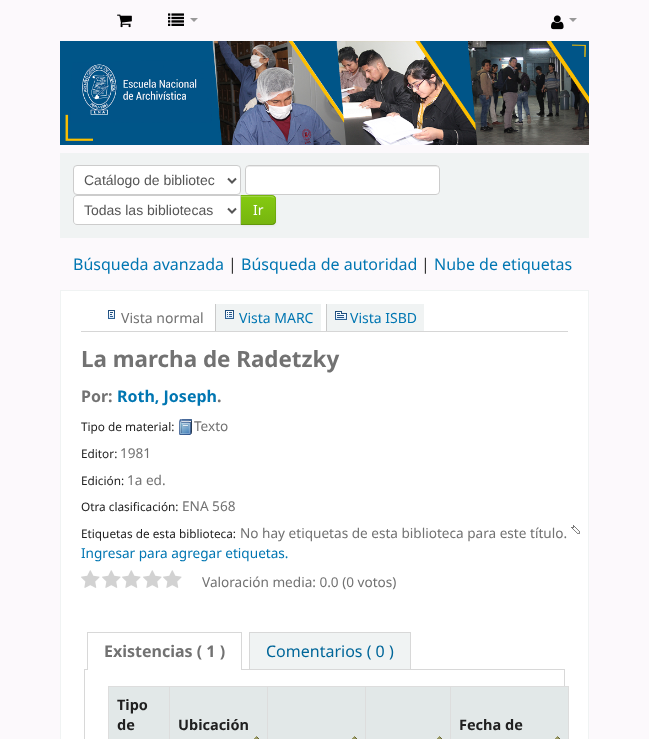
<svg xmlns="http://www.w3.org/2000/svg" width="649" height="739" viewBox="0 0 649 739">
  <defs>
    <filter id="blur1" x="-50%" y="-200%" width="200%" height="500%"><feGaussianBlur stdDeviation="1"/></filter>
    <clipPath id="clip1"><path d="M240 195H272C274 195 276 197 276 199V221C276 223 274 225 272 225H240Z"/></clipPath>
    <linearGradient id="g1" gradientUnits="userSpaceOnUse" x1="258" y1="196" x2="258" y2="224"><stop offset="0" stop-color="#85ca11"/><stop offset="1" stop-color="#77b50f"/></linearGradient>
  </defs>
  <rect width="100%" height="100%" fill="#fcf9fc"/>
  <image x="117" y="14" width="15" height="14" href="img1.png"/>
  <image x="168" y="13" width="16" height="13" href="img2.png"/>
  <path d="M190 18H198L194 22Z" fill="#999999"/>
  <image x="551" y="15" width="13" height="15" href="img3.png"/>
  <path d="M569 18H577L573 22Z" fill="#999999"/>
  <image x="60" y="41" width="529" height="104" href="img4.png"/>
  <rect x="60" y="153" width="529" height="85" fill="#f0f3f3"/>
  <rect x="73.5" y="165.5" width="167" height="29" rx="3.5" fill="#ffffff" stroke="#cccccc"/>
  <path d="M228 178.5L232 182.5L236 178.5" fill="none" stroke="#555555" stroke-width="2"/>
  <text x="84" y="185" font-family="Liberation Sans" font-size="14" fill="#555555">Catálogo de bibliotec</text>
  <rect x="245" y="165" width="195" height="30" rx="4" fill="#ffffff"/>
  <path d="M249 167H436C438 167 439 168 439 170C439 168 438 166 436 166H249C247 166 246 168 246 170C246 168 247 167 249 167Z" fill="#ececec"/>
  <rect x="245.5" y="165.5" width="194" height="29" rx="3.5" fill="none" stroke="#cccccc"/>
  <rect x="240" y="196" width="36" height="30" rx="4" fill="#000000" fill-opacity="0.05" filter="url(#blur1)"/>
  <path d="M240 195H272C274 195 276 197 276 199V221C276 223 274 225 272 225H240Z" fill="#85ca11"/>
  <g clip-path="url(#clip1)">
    <rect x="241" y="196" width="35" height="28" fill="url(#g1)"/>
  </g>
  <path d="M241 197H267C272 197 274.5 197.5 275 199C275 197.5 273.5 196 272 196H241Z" fill="#9dd541"/>
  <path d="M240 195L241 196H272C273 196 273.5 196.5 274 197L275 196C274 195.5 273 195 272 195Z" fill="#000000" fill-opacity="0.1"/>
  <path d="M276 221V199C276 198 275.5 197 275 196L274 197C274.5 197.5 275 198 275 199V221C275 222 274.5 222.5 274 223L275 224C275.5 223 276 222 276 221Z" fill="#000000" fill-opacity="0.1"/>
  <path d="M272 225C273 225 274 224.5 275 224L274 223C273.5 223.5 273 224 272 224H241L240 225Z" fill="#000000" fill-opacity="0.25"/>
  <path d="M77 195.5H240.5V224.5H77C75 224.5 73.5 223 73.5 221V199C73.5 197 75 195.5 77 195.5Z" fill="#ffffff" stroke="#cccccc"/>
  <path d="M228 208.5L232 212.5L236 208.5" fill="none" stroke="#555555" stroke-width="2"/>
  <text x="84" y="215" font-family="Liberation Sans" font-size="14" fill="#555555">Todas las bibliotecas</text>
  <text x="253" y="215" font-family="Noto Sans" font-size="14" fill="#ffffff">Ir</text>
  <text x="73" y="270" font-family="Noto Sans" font-size="16" fill="#0076b2">Búsqueda avanzada</text>
  <text x="228" y="270" font-family="Noto Sans" font-size="16" fill="#333333">|</text>
  <text x="241" y="270" font-family="Noto Sans" font-size="16" fill="#0076b2">Búsqueda de autoridad</text>
  <text x="421" y="270" font-family="Noto Sans" font-size="16" fill="#333333">|</text>
  <text x="434" y="270" font-family="Noto Sans" font-size="16" fill="#0076b2">Nube de etiquetas</text>
  <rect x="60.5" y="290.5" width="528" height="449" fill="#ffffff" stroke="#f0f3f3"/>
  <rect x="81" y="331" width="487" height="1" fill="#d6d6d6"/>
  <image x="108" y="310" width="7" height="9" href="img5.png"/>
  <text x="121" y="323" font-family="Noto Sans" font-size="14" fill="#727272">Vista normal</text>
  <rect x="216" y="304" width="105" height="27" fill="#f0f3f3"/>
  <rect x="215" y="304" width="1" height="27" fill="#c9c9c9"/>
  <image x="225" y="310" width="9" height="9" href="img6.png"/>
  <text x="239" y="323" font-family="Noto Sans" font-size="14" fill="#0076b2">Vista MARC</text>
  <rect x="327" y="304" width="97" height="27" fill="#f0f3f3"/>
  <rect x="326" y="304" width="1" height="27" fill="#c9c9c9"/>
  <image x="335" y="311" width="12" height="9" href="img7.png"/>
  <text x="350" y="323" font-family="Noto Sans" font-size="14" fill="#0076b2">Vista ISBD</text>
  <text x="81" y="367" font-family="Noto Sans" font-size="22.4" font-weight="bold" fill="#727272">La marcha de Radetzky</text>
  <text x="81" y="402" font-family="Noto Sans" font-size="16" font-weight="bold" fill="#727272">Por:</text>
  <text x="117" y="402" font-family="Noto Sans" font-size="16" font-weight="bold" fill="#0076b2">Roth, Joseph</text>
  <text x="217" y="402" font-family="Noto Sans" font-size="16" font-weight="bold" fill="#727272">.</text>
  <text x="81" y="431" font-family="Noto Sans" font-size="11.8" fill="#202020">Tipo de material:</text>
  <image x="179" y="419" width="13" height="16" href="img8.png"/>
  <text x="194" y="431" font-family="Noto Sans" font-size="13.6" fill="#727272">Texto</text>
  <text x="81" y="458" font-family="Noto Sans" font-size="11.8" fill="#202020">Editor:</text>
  <text x="120" y="458" font-family="Noto Sans" font-size="13.6" fill="#727272">1981</text>
  <text x="81" y="485" font-family="Noto Sans" font-size="11.8" fill="#202020">Edición:</text>
  <text x="127" y="485" font-family="Noto Sans" font-size="13.6" fill="#727272">1a ed.</text>
  <text x="81" y="511" font-family="Noto Sans" font-size="11.8" fill="#202020">Otra clasificación:</text>
  <text x="182" y="511" font-family="Noto Sans" font-size="13.6" fill="#727272">ENA 568</text>
  <text x="81" y="538" font-family="Noto Sans" font-size="11.8" fill="#202020">Etiquetas de esta biblioteca:</text>
  <text x="240" y="538" font-family="Noto Sans" font-size="13.6" fill="#727272">No hay etiquetas de esta biblioteca para este título.</text>
  <image x="571" y="525" width="9" height="9" href="img9.png"/>
  <text x="81" y="558" font-family="Noto Sans" font-size="13.6" fill="#0076b2">Ingresar para agregar etiquetas.</text>
  <image x="81" y="570" width="19" height="18" href="img10.png"/>
  <image x="102" y="570" width="19" height="18" href="img10.png"/>
  <image x="122" y="570" width="19" height="18" href="img10.png"/>
  <image x="143" y="570" width="19" height="18" href="img10.png"/>
  <image x="163" y="570" width="19" height="18" href="img10.png"/>
  <text x="202" y="587" font-family="Noto Sans" font-size="13.6" fill="#727272">Valoración media: 0.0 (0 votos)</text>
  <rect x="84.5" y="669.5" width="480" height="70" fill="none" stroke="#d8d8d8"/>
  <rect x="88" y="669" width="153" height="1" fill="#ffffff"/>
  <rect x="87" y="632" width="155" height="1" fill="#d8d8d8"/>
  <rect x="241" y="632" width="1" height="38" fill="#d8d8d8"/>
  <rect x="87" y="632" width="1" height="38" fill="#d8d8d8"/>
  <text x="104" y="657" font-family="Noto Sans" font-size="16" font-weight="bold" fill="#727272">Existencias ( 1 )</text>
  <rect x="250" y="633" width="160" height="36" fill="#f0f3f3"/>
  <rect x="249" y="632" width="162" height="1" fill="#d8d8d8"/>
  <rect x="410" y="632" width="1" height="37" fill="#d8d8d8"/>
  <rect x="249" y="632" width="1" height="37" fill="#d8d8d8"/>
  <text x="266" y="657" font-family="Noto Sans" font-size="16" fill="#006699">Comentarios ( 0 )</text>
  <rect x="108" y="686" width="461" height="1" fill="#dddddd"/>
  <rect x="568" y="686" width="1" height="53" fill="#dddddd"/>
  <rect x="109" y="687" width="60" height="52" fill="#e2e8e8"/>
  <rect x="108" y="687" width="1" height="52" fill="#dddddd"/>
  <text x="117" y="710" font-family="Noto Sans" font-size="14.5" font-weight="bold" fill="#202020">Tipo</text>
  <text x="117" y="730" font-family="Noto Sans" font-size="14.5" font-weight="bold" fill="#202020">de</text>
  <rect x="170" y="687" width="97" height="52" fill="#e2e8e8"/>
  <image x="254" y="736" width="5" height="3" href="img11.png"/>
  <rect x="169" y="687" width="1" height="52" fill="#dddddd"/>
  <text x="178" y="730" font-family="Noto Sans" font-size="14.5" font-weight="bold" fill="#202020">Ubicación</text>
  <rect x="268" y="687" width="97" height="52" fill="#e2e8e8"/>
  <image x="352" y="736" width="5" height="3" href="img11.png"/>
  <rect x="267" y="687" width="1" height="52" fill="#dddddd"/>
  <rect x="366" y="687" width="84" height="52" fill="#e2e8e8"/>
  <image x="437" y="736" width="5" height="3" href="img11.png"/>
  <rect x="365" y="687" width="1" height="52" fill="#dddddd"/>
  <rect x="451" y="687" width="117" height="52" fill="#e2e8e8"/>
  <image x="555" y="736" width="5" height="3" href="img11.png"/>
  <rect x="450" y="687" width="1" height="52" fill="#dddddd"/>
  <text x="459" y="730" font-family="Noto Sans" font-size="14.5" font-weight="bold" fill="#202020">Fecha de</text>
</svg>
